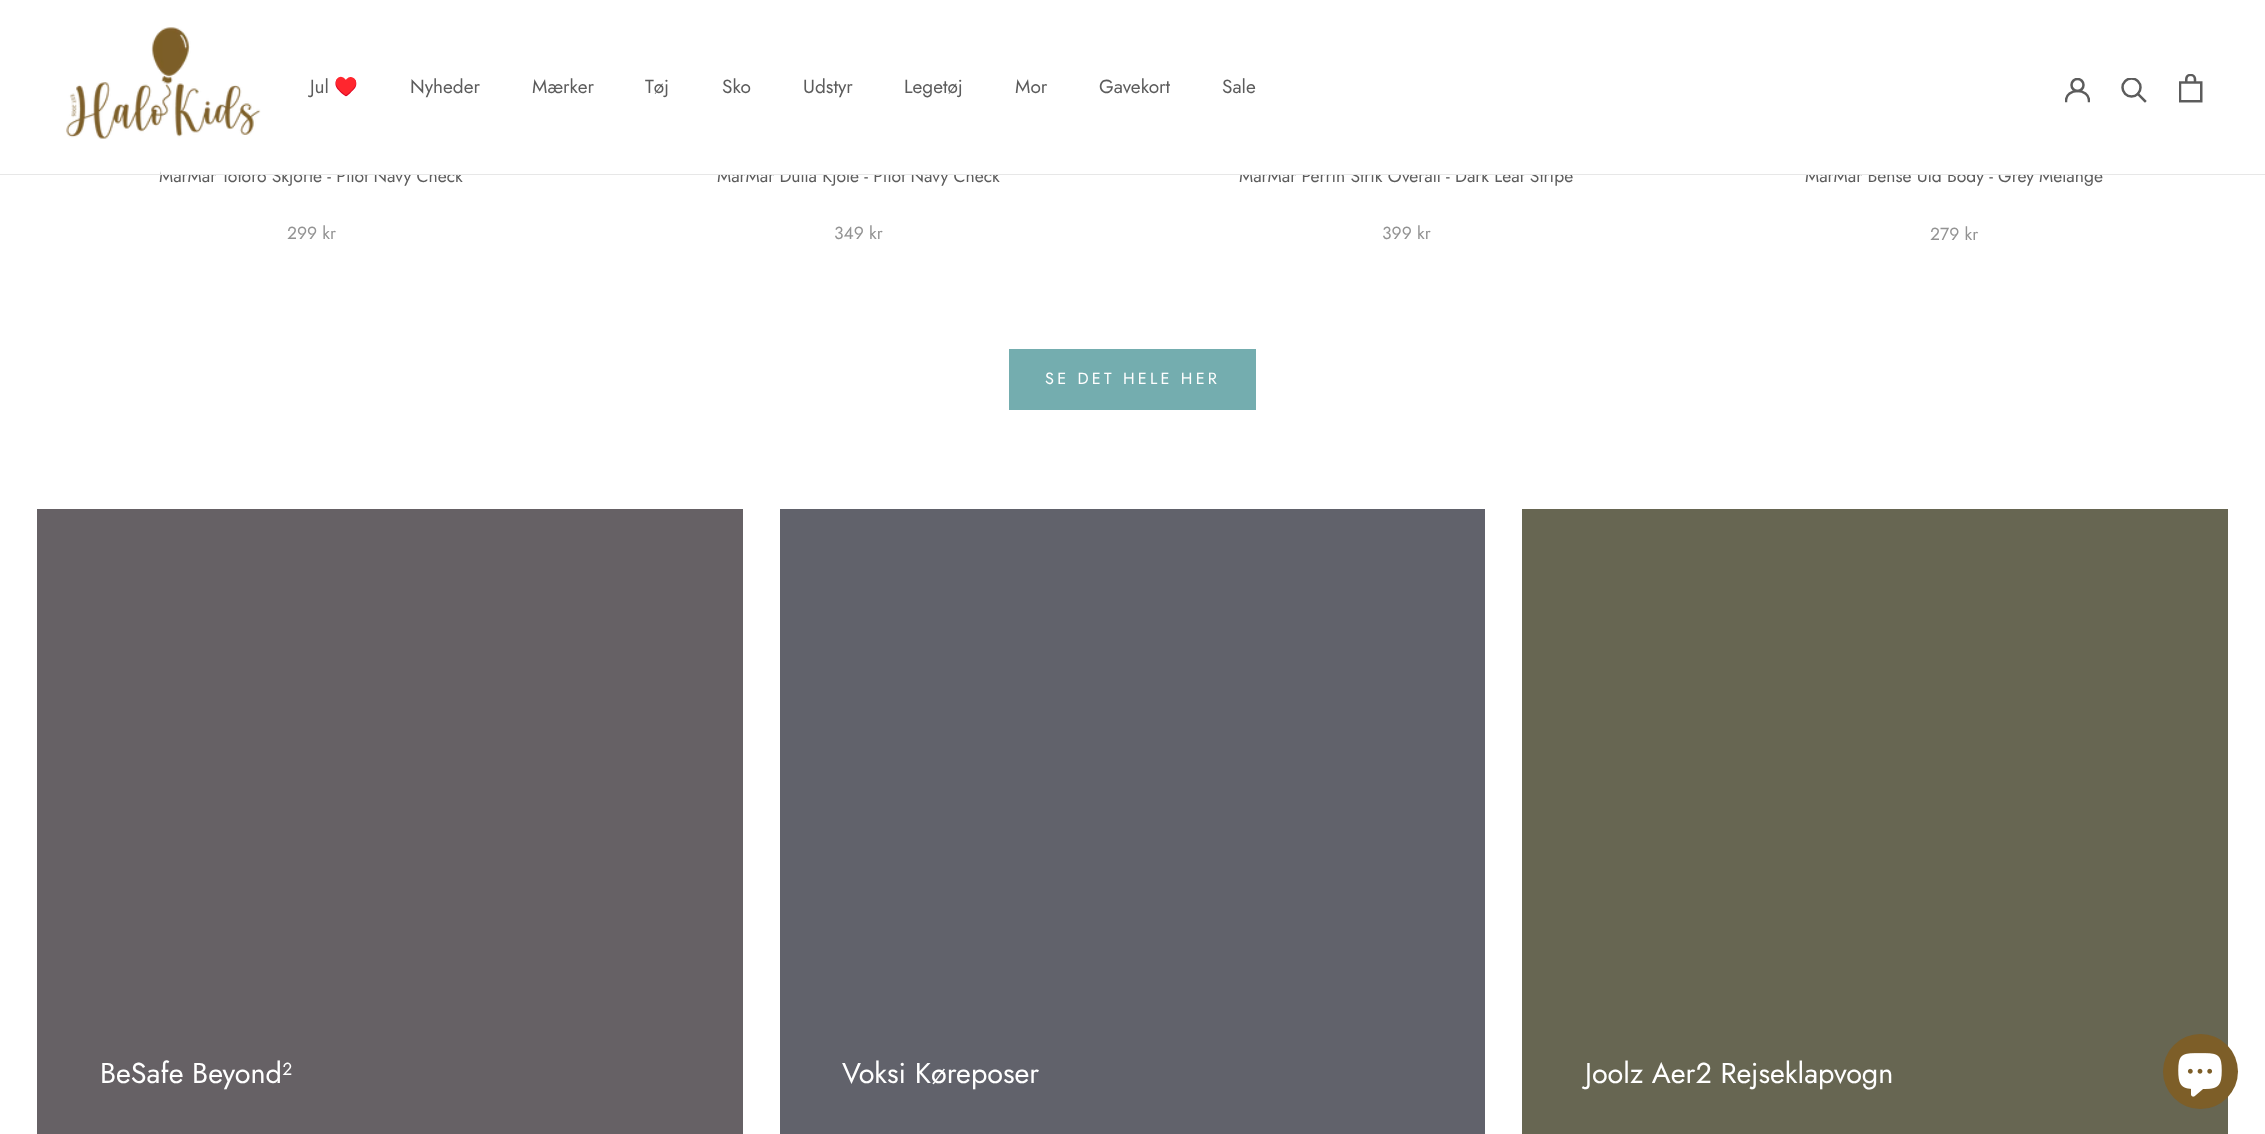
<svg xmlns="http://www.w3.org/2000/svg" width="2265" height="1134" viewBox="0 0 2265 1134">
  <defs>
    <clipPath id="clip1"><rect x="2065" y="78" width="25" height="25"/></clipPath>
    <clipPath id="clip2"><rect x="2121" y="78" width="27" height="26"/></clipPath>
  </defs>
  <rect width="100%" height="100%" fill="#ffffff"/>
  <text x="159" y="182" font-family="Jost" font-size="17.5" fill="#5c5c5c">MarMar Totoro Skjorte - Pilot Navy Check</text>
  <text x="717" y="182" font-family="Jost" font-size="17.5" fill="#5c5c5c">MarMar Dulla Kjole - Pilot Navy Check</text>
  <text x="1239" y="182" font-family="Jost" font-size="17.5" fill="#5c5c5c">MarMar Perrin Strik Overall - Dark Leaf Stripe</text>
  <text x="1805" y="182" font-family="Jost" font-size="17.5" fill="#5c5c5c">MarMar Bense Uld Body - Grey Melange</text>
  <rect x="161" y="168" width="1939" height="6" fill="#ffffff"/>
  <rect x="0" y="174" width="2265" height="1" fill="#e7e7e7"/>
  <image x="66" y="27" width="195" height="112" href="img1.png"/>
  <text x="310" y="93" font-family="Jost" font-size="19" fill="#5c5c5c">Jul</text>
  <text x="334" y="93" font-family="Noto Color Emoji" font-size="19" fill="#5c5c5c">♥️</text>
  <text x="410" y="93" font-family="Jost" font-size="19" fill="#5c5c5c">Nyheder</text>
  <text x="532" y="93" font-family="Jost" font-size="19" fill="#5c5c5c">Mærker</text>
  <text x="645" y="93" font-family="Jost" font-size="19" fill="#5c5c5c">Tøj</text>
  <text x="722" y="93" font-family="Jost" font-size="19" fill="#5c5c5c">Sko</text>
  <text x="803" y="93" font-family="Jost" font-size="19" fill="#5c5c5c">Udstyr</text>
  <text x="904" y="93" font-family="Jost" font-size="19" fill="#5c5c5c">Legetøj</text>
  <text x="1015" y="93" font-family="Jost" font-size="19" fill="#5c5c5c">Mor</text>
  <text x="1099" y="93" font-family="Jost" font-size="19" fill="#5c5c5c">Gavekort</text>
  <text x="1222" y="93" font-family="Jost" font-size="19" fill="#5c5c5c">Sale</text>
  <g clip-path="url(#clip1)">
    <path d="M2066 101C2066 87.5 2089 87.5 2089 101" fill="none" stroke="#5c5c5c" stroke-width="2.5" stroke-linecap="square"/>
    <circle cx="2077.5" cy="85" r="6" fill="none" stroke="#5c5c5c" stroke-width="2.5"/>
  </g>
  <path d="M2145 101L2138 94" fill="none" stroke="#5c5c5c" stroke-width="2.5" stroke-linecap="square"/>
  <g clip-path="url(#clip2)">
    <circle cx="2131.5" cy="87.5" r="9" fill="none" stroke="#5c5c5c" stroke-width="2.5"/>
  </g>
  <image x="2179" y="74" width="24" height="29" href="img2.png"/>
  <text x="287" y="239" font-family="Jost" font-size="17.5" fill="#939393">299 kr</text>
  <text x="834" y="239" font-family="Jost" font-size="17.5" fill="#939393">349 kr</text>
  <text x="1382" y="239" font-family="Jost" font-size="17.5" fill="#939393">399 kr</text>
  <text x="1930" y="240" font-family="Jost" font-size="17.5" fill="#939393">279 kr</text>
  <rect x="1009.5" y="349.5" width="246" height="60" fill="none" stroke="#74adaf"/>
  <rect x="1010" y="350" width="245" height="59" fill="#74adaf"/>
  <text x="1045" y="384" font-family="Jost" font-size="16.25" letter-spacing="3.25" fill="#ffffff">SE DET HELE HER</text>
  <rect x="37" y="509" width="706" height="625" fill="#666165"/>
  <text x="100" y="1083" font-family="Jost" font-size="28.75" fill="#ffffff">BeSafe Beyond²</text>
  <rect x="780" y="509" width="705" height="625" fill="#61626b"/>
  <text x="842" y="1083" font-family="Jost" font-size="28.75" fill="#ffffff">Voksi Køreposer</text>
  <rect x="1522" y="509" width="706" height="625" fill="#676652"/>
  <text x="1585" y="1083" font-family="Jost" font-size="28.75" fill="#ffffff">Joolz Aer2 Rejseklapvogn</text>
  <circle cx="2200.5" cy="1071.5" r="37.5" fill="#7d5e28"/>
  <image x="2178" y="1053" width="44" height="44" href="img3.png"/>
</svg>
